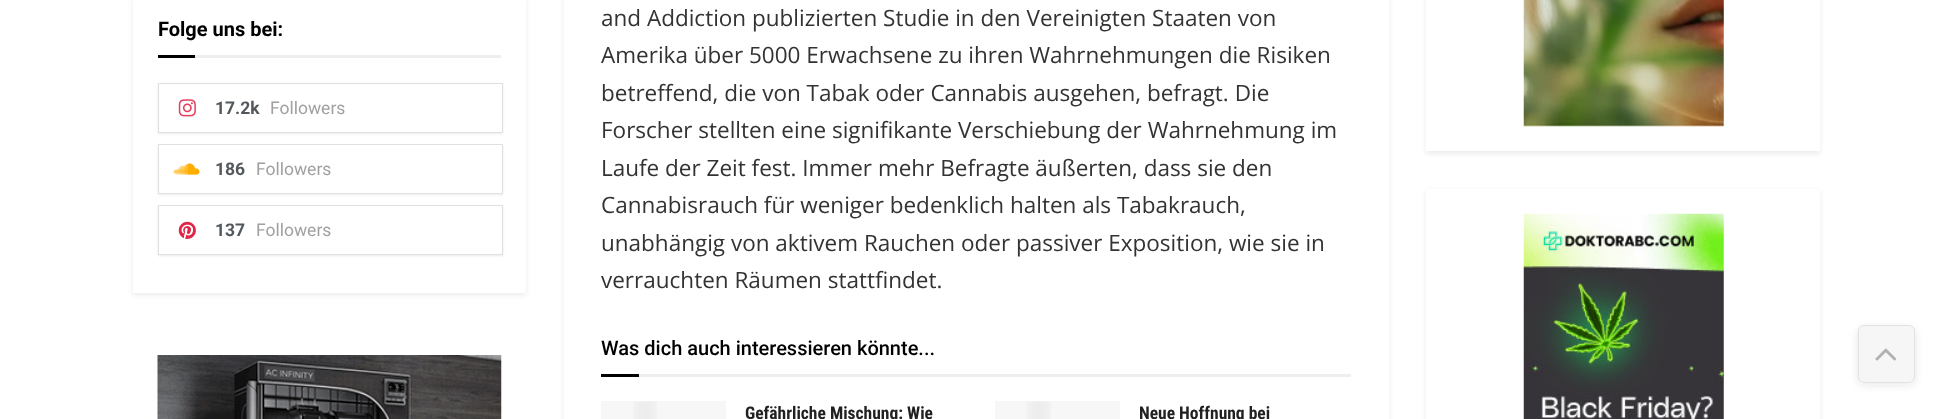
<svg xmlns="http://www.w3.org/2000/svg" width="1952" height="419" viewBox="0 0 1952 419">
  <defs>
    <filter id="blur1" x="-50%" y="-200%" width="200%" height="500%"><feGaussianBlur stdDeviation="2.5"/></filter>
    <filter id="blur2" x="-50%" y="-200%" width="200%" height="500%"><feGaussianBlur stdDeviation="1"/></filter>
    <clipPath id="clip1"><path d="M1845 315H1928V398H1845ZM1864 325H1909C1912.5 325 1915 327.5 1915 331V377C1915 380.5 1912.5 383 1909 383H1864C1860.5 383 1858 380.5 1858 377V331C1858 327.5 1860.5 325 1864 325Z" clip-rule="evenodd"/></clipPath>
    <filter id="blur3" x="-50%" y="-200%" width="200%" height="500%"><feGaussianBlur stdDeviation="4"/></filter>
  </defs>
  <rect width="100%" height="100%" fill="#ffffff"/>
  <rect x="133" y="-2" width="393" height="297" fill="#000000" fill-opacity="0.08" filter="url(#blur1)"/>
  <rect x="133" y="0" width="393" height="293" fill="#ffffff"/>
  <rect x="195" y="55" width="306" height="3" fill="#eeeeee"/>
  <text x="158" y="36" font-family="Roboto" font-size="20" font-weight="bold" fill="#000000">Folge uns bei:</text>
  <rect x="158" y="55" width="37" height="3" fill="#000000"/>
  <rect x="158" y="84" width="345" height="50" fill="#000000" fill-opacity="0.08" filter="url(#blur2)"/>
  <rect x="158.5" y="83.5" width="344" height="49" fill="#ffffff" stroke="#e0e0e0"/>
  <image x="178" y="99" width="18" height="18" href="img1.png"/>
  <text x="215" y="114" font-family="Roboto" font-size="17.5" font-weight="bold" fill="#53585c">17.2k</text>
  <text x="270" y="114" font-family="Roboto" font-size="17.5" fill="#a0a0a0">Followers</text>
  <rect x="158" y="145" width="345" height="50" fill="#000000" fill-opacity="0.08" filter="url(#blur2)"/>
  <rect x="158.5" y="144.5" width="344" height="49" fill="#ffffff" stroke="#e0e0e0"/>
  <image x="173" y="163" width="27" height="12" href="img2.png"/>
  <text x="215" y="175" font-family="Roboto" font-size="17.5" font-weight="bold" fill="#53585c">186</text>
  <text x="256" y="175" font-family="Roboto" font-size="17.5" fill="#a0a0a0">Followers</text>
  <rect x="158" y="206" width="345" height="50" fill="#000000" fill-opacity="0.08" filter="url(#blur2)"/>
  <rect x="158.5" y="205.5" width="344" height="49" fill="#ffffff" stroke="#e0e0e0"/>
  <image x="178" y="221" width="18" height="18" href="img3.png"/>
  <text x="215" y="236" font-family="Roboto" font-size="17.5" font-weight="bold" fill="#53585c">137</text>
  <text x="256" y="236" font-family="Roboto" font-size="17.5" fill="#a0a0a0">Followers</text>
  <image x="157" y="355" width="345" height="64" href="img4.png"/>
  <rect x="564" y="-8" width="825" height="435" fill="#000000" fill-opacity="0.08" filter="url(#blur1)"/>
  <rect x="564" y="0" width="825" height="419" fill="#ffffff"/>
  <text x="601" y="26" font-family="Open Sans" font-size="22.5" fill="#333333">and Addiction publizierten Studie in den Vereinigten Staaten von</text>
  <text x="601" y="63" font-family="Open Sans" font-size="22.5" fill="#333333">Amerika über 5000 Erwachsene zu ihren Wahrnehmungen die Risiken</text>
  <text x="601" y="101" font-family="Open Sans" font-size="22.5" fill="#333333">betreffend, die von Tabak oder Cannabis ausgehen, befragt. Die</text>
  <text x="601" y="138" font-family="Open Sans" font-size="22.5" fill="#333333">Forscher stellten eine signifikante Verschiebung der Wahrnehmung im</text>
  <text x="601" y="176" font-family="Open Sans" font-size="22.5" fill="#333333">Laufe der Zeit fest. Immer mehr Befragte äußerten, dass sie den</text>
  <text x="601" y="213" font-family="Open Sans" font-size="22.5" fill="#333333">Cannabisrauch für weniger bedenklich halten als Tabakrauch,</text>
  <text x="601" y="251" font-family="Open Sans" font-size="22.5" fill="#333333">unabhängig von aktivem Rauchen oder passiver Exposition, wie sie in</text>
  <text x="601" y="288" font-family="Open Sans" font-size="22.5" fill="#333333">verrauchten Räumen stattfindet.</text>
  <rect x="639" y="374" width="712" height="3" fill="#eeeeee"/>
  <text x="601" y="355" font-family="Roboto" font-size="20" font-weight="500" fill="#000000">Was dich auch interessieren könnte...</text>
  <rect x="601" y="374" width="38" height="3" fill="#000000"/>
  <rect x="601" y="401" width="125" height="18" fill="#f7f7f7"/>
  <image x="633" y="401" width="24" height="18" href="img5.png"/>
  <text x="745" y="419" font-family="Roboto Condensed" font-size="17.5" font-weight="bold" fill="#212121">Gefährliche Mischung: Wie</text>
  <rect x="995" y="401" width="125" height="18" fill="#f7f7f7"/>
  <image x="1026" y="401" width="25" height="18" href="img6.png"/>
  <text x="1139" y="419" font-family="Roboto Condensed" font-size="17.5" font-weight="bold" fill="#212121">Neue Hoffnung bei</text>
  <rect x="1426" y="-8" width="394" height="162" fill="#000000" fill-opacity="0.08" filter="url(#blur1)"/>
  <rect x="1426" y="0" width="394" height="151" fill="#ffffff"/>
  <image x="1523" y="0" width="201" height="127" href="img7.png"/>
  <rect x="1426" y="191" width="394" height="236" fill="#000000" fill-opacity="0.08" filter="url(#blur1)"/>
  <rect x="1426" y="189" width="394" height="230" fill="#ffffff"/>
  <image x="1523" y="213" width="201" height="206" href="img8.png"/>
  <g clip-path="url(#clip1)">
    <rect x="1858" y="328" width="57" height="57" rx="6" fill="#333333" fill-opacity="0.1" filter="url(#blur3)"/>
  </g>
  <rect x="1858" y="325" width="57" height="58" rx="6" fill="#c3c3c3" fill-opacity="0.15"/>
  <rect x="1858.5" y="325.5" width="56" height="57" rx="5.5" fill="none" stroke="#333333" stroke-opacity="0.11"/>
  <image x="1875" y="348" width="22" height="13" href="img9.png"/>
</svg>
